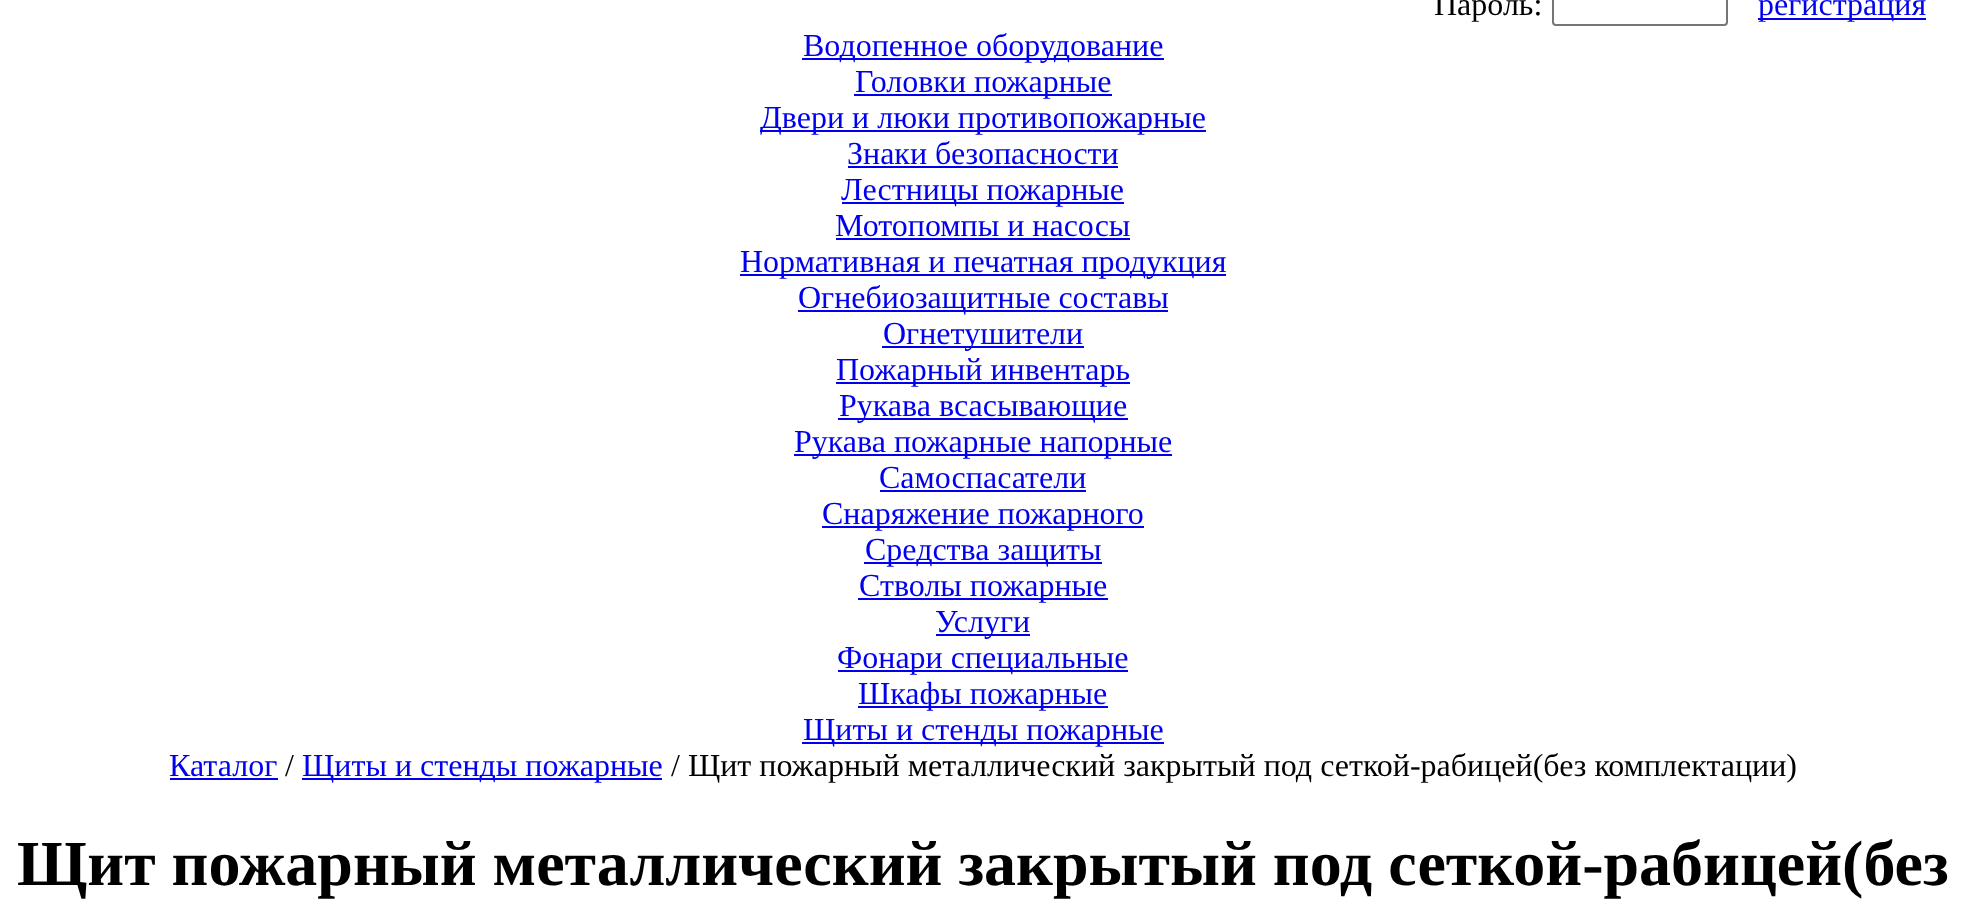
<svg xmlns="http://www.w3.org/2000/svg" width="1965" height="919" viewBox="0 0 1965 919">
  <rect width="100%" height="100%" fill="#ffffff"/>
  <text x="1434" y="15" font-family="Liberation Serif" font-size="32" fill="#000000">Пароль:</text>
  <rect x="1553" y="-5" width="174" height="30" rx="3" fill="none" stroke="#767676" stroke-width="2"/>
  <rect x="1758" y="18" width="168" height="2" fill="#0000ee"/>
  <text x="1758" y="15" font-family="Liberation Serif" font-size="32" fill="#0000ee">регистрация</text>
  <rect x="802" y="58" width="362" height="2" fill="#0000ee"/>
  <text x="803" y="56" font-family="Liberation Serif" font-size="32" fill="#0000ee">Водопенное оборудование</text>
  <rect x="854" y="94" width="258" height="2" fill="#0000ee"/>
  <text x="855" y="92" font-family="Liberation Serif" font-size="32" fill="#0000ee">Головки пожарные</text>
  <rect x="760" y="130" width="446" height="2" fill="#0000ee"/>
  <text x="760" y="128" font-family="Liberation Serif" font-size="32" fill="#0000ee">Двери и люки противопожарные</text>
  <text x="847" y="164" font-family="Liberation Serif" font-size="32" fill="#0000ee">Знаки безопасности</text>
  <rect x="848" y="166" width="270" height="2" fill="#0000ee"/>
  <rect x="842" y="202" width="282" height="2" fill="#0000ee"/>
  <text x="841" y="200" font-family="Liberation Serif" font-size="32" fill="#0000ee">Лестницы пожарные</text>
  <text x="835" y="236" font-family="Liberation Serif" font-size="32" fill="#0000ee">Мотопомпы и насосы</text>
  <rect x="836" y="238" width="294" height="2" fill="#0000ee"/>
  <rect x="740" y="274" width="486" height="2" fill="#0000ee"/>
  <text x="740" y="272" font-family="Liberation Serif" font-size="32" fill="#0000ee">Нормативная и печатная продукция</text>
  <rect x="798" y="310" width="370" height="2" fill="#0000ee"/>
  <text x="798" y="308" font-family="Liberation Serif" font-size="32" fill="#0000ee">Огнебиозащитные составы</text>
  <rect x="882" y="346" width="202" height="2" fill="#0000ee"/>
  <text x="883" y="344" font-family="Liberation Serif" font-size="32" fill="#0000ee">Огнетушители</text>
  <rect x="836" y="382" width="294" height="2" fill="#0000ee"/>
  <text x="836" y="380" font-family="Liberation Serif" font-size="32" fill="#0000ee">Пожарный инвентарь</text>
  <rect x="838" y="418" width="290" height="2" fill="#0000ee"/>
  <text x="839" y="416" font-family="Liberation Serif" font-size="32" fill="#0000ee">Рукава всасывающие</text>
  <rect x="794" y="454" width="378" height="2" fill="#0000ee"/>
  <text x="794" y="452" font-family="Liberation Serif" font-size="32" fill="#0000ee">Рукава пожарные напорные</text>
  <text x="879" y="488" font-family="Liberation Serif" font-size="32" fill="#0000ee">Самоспасатели</text>
  <rect x="880" y="490" width="206" height="2" fill="#0000ee"/>
  <rect x="822" y="526" width="322" height="2" fill="#0000ee"/>
  <text x="822" y="524" font-family="Liberation Serif" font-size="32" fill="#0000ee">Снаряжение пожарного</text>
  <rect x="864" y="562" width="238" height="2" fill="#0000ee"/>
  <text x="865" y="560" font-family="Liberation Serif" font-size="32" fill="#0000ee">Средства защиты</text>
  <rect x="858" y="598" width="250" height="2" fill="#0000ee"/>
  <text x="859" y="596" font-family="Liberation Serif" font-size="32" fill="#0000ee">Стволы пожарные</text>
  <rect x="936" y="634" width="94" height="2" fill="#0000ee"/>
  <text x="935" y="632" font-family="Liberation Serif" font-size="32" fill="#0000ee">Услуги</text>
  <rect x="838" y="670" width="290" height="2" fill="#0000ee"/>
  <text x="837" y="668" font-family="Liberation Serif" font-size="32" fill="#0000ee">Фонари специальные</text>
  <rect x="858" y="706" width="250" height="2" fill="#0000ee"/>
  <text x="858" y="704" font-family="Liberation Serif" font-size="32" fill="#0000ee">Шкафы пожарные</text>
  <rect x="802" y="742" width="362" height="2" fill="#0000ee"/>
  <text x="803" y="740" font-family="Liberation Serif" font-size="32" fill="#0000ee">Щиты и стенды пожарные</text>
  <text x="169" y="776" font-family="Liberation Serif" font-size="32" fill="#0000ee">Каталог</text>
  <rect x="170" y="778" width="108" height="2" fill="#0000ee"/>
  <text x="285" y="776" font-family="Liberation Serif" font-size="32" fill="#000000">/</text>
  <rect x="302" y="778" width="360" height="2" fill="#0000ee"/>
  <text x="302" y="776" font-family="Liberation Serif" font-size="32" fill="#0000ee">Щиты и стенды пожарные</text>
  <text x="671" y="776" font-family="Liberation Serif" font-size="32" fill="#000000">/ Щит пожарный металлический закрытый под сеткой-рабицей(без комплектации)</text>
  <text x="17" y="885" font-family="Liberation Serif" font-size="64" font-weight="bold" fill="#000000">Щит пожарный металлический закрытый под сеткой-рабицей(без</text>
</svg>
